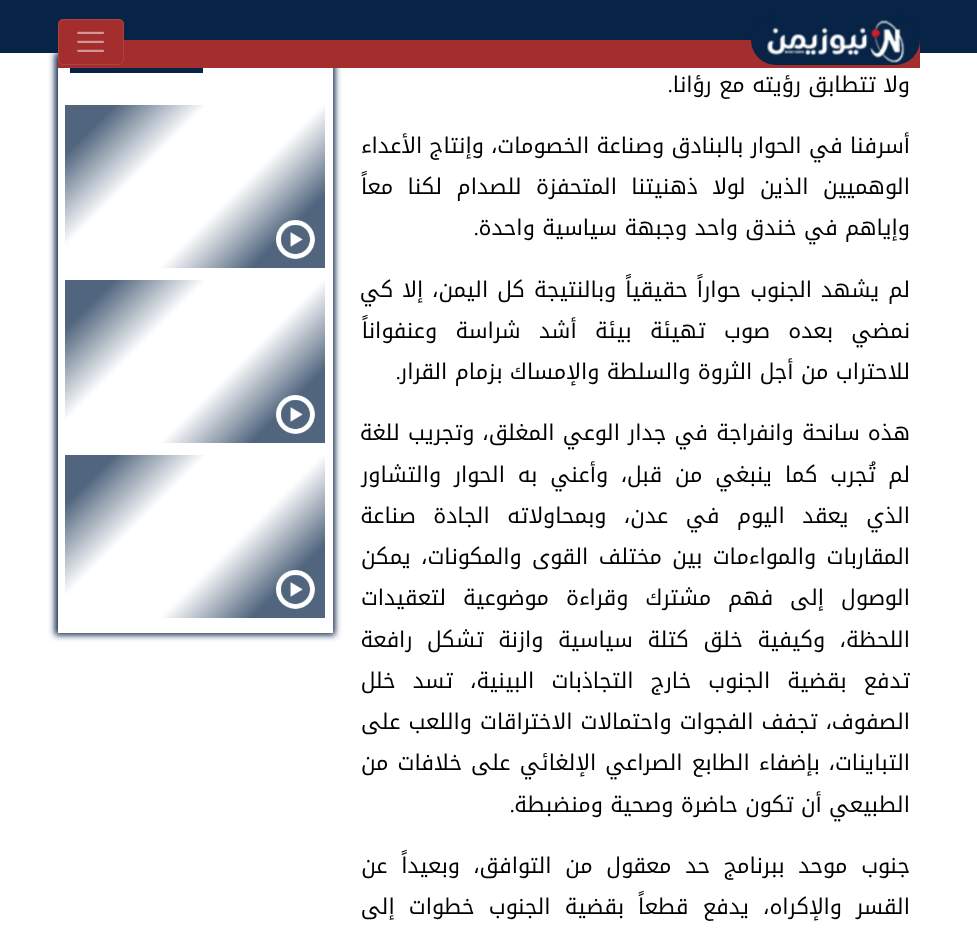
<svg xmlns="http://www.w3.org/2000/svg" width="977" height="932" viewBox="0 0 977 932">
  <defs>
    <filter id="blur1" x="-50%" y="-200%" width="200%" height="500%"><feGaussianBlur stdDeviation="3"/></filter>
    <clipPath id="clip1"><rect x="65" y="105" width="260" height="163"/></clipPath>
    <linearGradient id="g1" gradientUnits="userSpaceOnUse" x1="80" y1="71" x2="310" y2="301"><stop offset="0.15" stop-color="#51667e"/><stop offset="0.35" stop-color="#ffffff"/><stop offset="0.6" stop-color="#ffffff"/><stop offset="0.8" stop-color="#51667e"/></linearGradient>
    <clipPath id="clip2"><rect x="65" y="280" width="260" height="163"/></clipPath>
    <linearGradient id="g2" gradientUnits="userSpaceOnUse" x1="80" y1="246" x2="310" y2="476"><stop offset="0.15" stop-color="#51667e"/><stop offset="0.35" stop-color="#ffffff"/><stop offset="0.6" stop-color="#ffffff"/><stop offset="0.8" stop-color="#51667e"/></linearGradient>
    <clipPath id="clip3"><rect x="65" y="455" width="260" height="163"/></clipPath>
    <linearGradient id="g3" gradientUnits="userSpaceOnUse" x1="80" y1="421" x2="310" y2="651"><stop offset="0.15" stop-color="#51667e"/><stop offset="0.35" stop-color="#ffffff"/><stop offset="0.6" stop-color="#ffffff"/><stop offset="0.8" stop-color="#51667e"/></linearGradient>
  </defs>
  <rect width="100%" height="100%" fill="#ffffff"/>
  <rect x="55" y="53" width="280" height="582" fill="#072446" filter="url(#blur1)"/>
  <rect x="0" y="0" width="977" height="53" fill="#072446"/>
  <rect x="58" y="40" width="862" height="28" fill="#a42e2e"/>
  <rect x="751" y="15" width="169" height="50" rx="25" fill="#072446"/>
  <image x="767" y="20" width="138" height="43" href="img1.png"/>
  <rect x="58" y="19" width="66" height="46" rx="5" fill="#a42e2e"/>
  <rect x="58.5" y="19.5" width="65" height="45" rx="4.5" fill="none" stroke="#ffffff" stroke-opacity="0.1"/>
  <image x="77" y="31" width="27" height="21" href="img2.png"/>
  <text x="910" y="92" font-family="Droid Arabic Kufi" font-size="21.7" direction="rtl" fill="#000000">ولا تتطابق رؤيته مع رؤانا</text>
  <text x="673" y="92" font-family="Liberation Serif" font-size="21.7" direction="rtl" fill="#000000">.</text>
  <text x="910" y="153" font-family="Droid Arabic Kufi" font-size="21.7" direction="rtl" fill="#000000">أسرفنا في الحوار بالبنادق وصناعة الخصومات، وإنتاج الأعداء</text>
  <text x="910" y="194" word-spacing="7" font-family="Droid Arabic Kufi" font-size="21.7" direction="rtl" fill="#000000">الوهميين الذين لولا ذهنيتنا المتحفزة للصدام لكنا معاً</text>
  <text x="910" y="235" font-family="Droid Arabic Kufi" font-size="21.7" direction="rtl" fill="#000000">وإياهم في خندق واحد وجبهة سياسية واحدة</text>
  <text x="479" y="235" font-family="Liberation Serif" font-size="21.7" direction="rtl" fill="#000000">.</text>
  <text x="910" y="297" word-spacing="1.75" font-family="Droid Arabic Kufi" font-size="21.7" direction="rtl" fill="#000000">لم يشهد الجنوب حواراً حقيقياً وبالنتيجة كل اليمن، إلا كي</text>
  <text x="910" y="338" word-spacing="11" font-family="Droid Arabic Kufi" font-size="21.7" direction="rtl" fill="#000000">نمضي بعده صوب تهيئة بيئة أشد شراسة وعنفواناً</text>
  <text x="401" y="379" font-family="Liberation Serif" font-size="21.7" direction="rtl" fill="#000000">.</text>
  <text x="910" y="379" font-family="Droid Arabic Kufi" font-size="21.7" direction="rtl" fill="#000000">للاحتراب من أجل الثروة والسلطة والإمساك بزمام القرار</text>
  <text x="910" y="440" word-spacing="0.75" font-family="Droid Arabic Kufi" font-size="21.7" direction="rtl" fill="#000000">هذه سانحة وانفراجة في جدار الوعي المغلق، وتجريب للغة</text>
  <text x="910" y="482" word-spacing="5.5" font-family="Droid Arabic Kufi" font-size="21.7" direction="rtl" fill="#000000">لم تُجرب كما ينبغي من قبل، وأعني به الحوار والتشاور</text>
  <text x="910" y="523" word-spacing="10.25" font-family="Droid Arabic Kufi" font-size="21.7" direction="rtl" fill="#000000">الذي يعقد اليوم في عدن، وبمحاولاته الجادة صناعة</text>
  <text x="910" y="564" word-spacing="3" font-family="Droid Arabic Kufi" font-size="21.7" direction="rtl" fill="#000000">المقاربات والمواءمات بين مختلف القوى والمكونات، يمكن</text>
  <text x="910" y="605" word-spacing="9.5" font-family="Droid Arabic Kufi" font-size="21.7" direction="rtl" fill="#000000">الوصول إلى فهم مشترك وقراءة موضوعية لتعقيدات</text>
  <text x="910" y="647" word-spacing="7.25" font-family="Droid Arabic Kufi" font-size="21.7" direction="rtl" fill="#000000">اللحظة، وكيفية خلق كتلة سياسية وازنة تشكل رافعة</text>
  <text x="910" y="688" word-spacing="9.75" font-family="Droid Arabic Kufi" font-size="21.7" direction="rtl" fill="#000000">تدفع بقضية الجنوب خارج التجاذبات البينية، تسد خلل</text>
  <text x="910" y="729" word-spacing="0.75" font-family="Droid Arabic Kufi" font-size="21.7" direction="rtl" fill="#000000">الصفوف، تجفف الفجوات واحتمالات الاختراقات واللعب على</text>
  <text x="910" y="770" word-spacing="1.75" font-family="Droid Arabic Kufi" font-size="21.7" direction="rtl" fill="#000000">التباينات، بإضفاء الطابع الصراعي الإلغائي على خلافات من</text>
  <text x="910" y="812" font-family="Droid Arabic Kufi" font-size="21.7" direction="rtl" fill="#000000">الطبيعي أن تكون حاضرة وصحية ومنضبطة</text>
  <text x="515" y="812" font-family="Liberation Serif" font-size="21.7" direction="rtl" fill="#000000">.</text>
  <text x="910" y="873" word-spacing="6.25" font-family="Droid Arabic Kufi" font-size="21.7" direction="rtl" fill="#000000">جنوب موحد ببرنامج حد معقول من التوافق، وبعيداً عن</text>
  <text x="910" y="914" word-spacing="6.75" font-family="Droid Arabic Kufi" font-size="21.7" direction="rtl" fill="#000000">القسر والإكراه، يدفع قطعاً بقضية الجنوب خطوات إلى</text>
  <rect x="58" y="68" width="275" height="565" fill="#ffffff"/>
  <rect x="70" y="68" width="133" height="5" fill="#072446"/>
  <g clip-path="url(#clip1)">
    <path d="M-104 255L264-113L494 117L126 484Z" fill="url(#g1)"/>
  </g>
  <image x="276" y="220" width="39" height="39" href="img3.png"/>
  <g clip-path="url(#clip2)">
    <path d="M-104 430L264 62L494 292L126 659Z" fill="url(#g2)"/>
  </g>
  <image x="276" y="395" width="39" height="39" href="img3.png"/>
  <g clip-path="url(#clip3)">
    <path d="M-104 605L264 237L494 467L126 834Z" fill="url(#g3)"/>
  </g>
  <image x="276" y="570" width="39" height="39" href="img3.png"/>
</svg>
